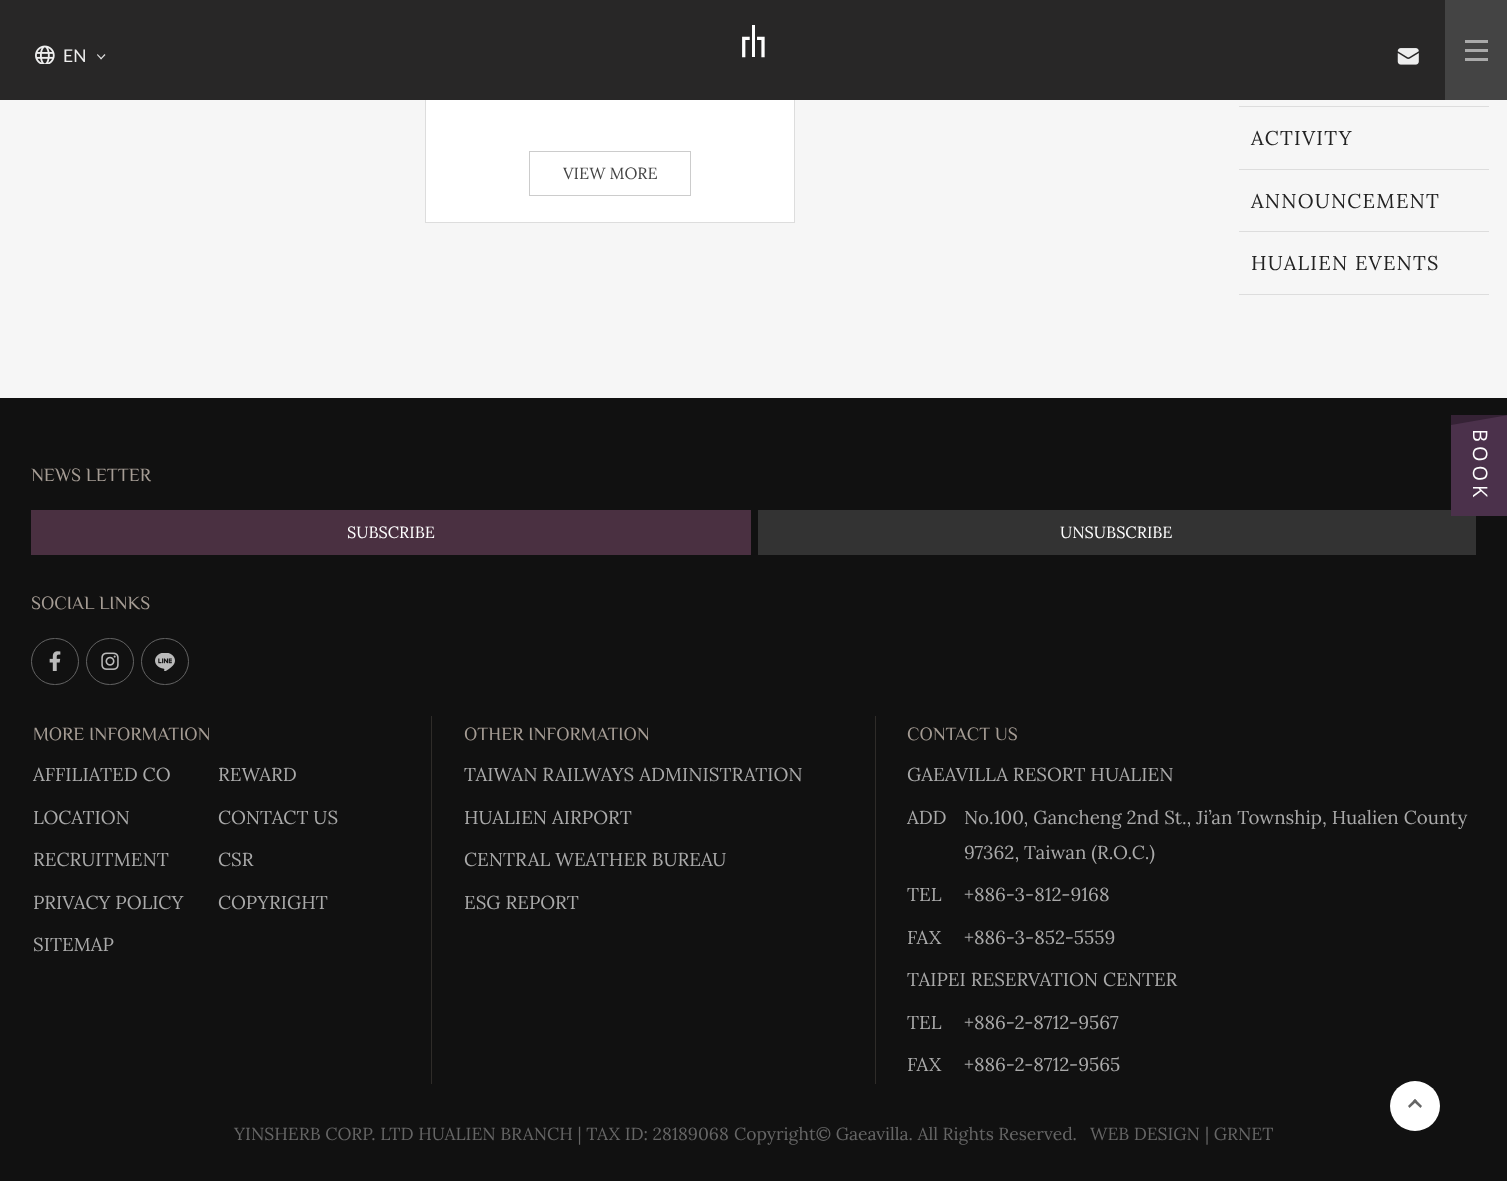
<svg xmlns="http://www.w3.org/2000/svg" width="1507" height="1181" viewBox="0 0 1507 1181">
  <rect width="100%" height="100%" fill="#f6f6f6"/>
  <rect x="426" y="100" width="368" height="122" fill="#ffffff"/>
  <rect x="425.5" y="-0.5" width="369" height="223" fill="none" stroke="#dddddd"/>
  <rect x="0" y="0" width="1445" height="100" fill="#282727"/>
  <image x="35" y="45" width="20" height="19" href="img1.png"/>
  <text x="63" y="62" font-family="Lato" font-size="17.5" fill="#eeeeee">EN</text>
  <path d="M104.5 54L105.5 55L101 59.5L100.5 58.5Z" fill="#dddddd"/>
  <path d="M97.5 54L102 58.5L101 59.5L97 55Z" fill="#dddddd"/>
  <image x="1397" y="48" width="22" height="17" href="img2.png"/>
  <image x="742" y="25" width="23" height="33" href="img3.png"/>
  <rect x="1445" y="0" width="62" height="100" fill="#444444"/>
  <rect x="1465" y="40" width="23" height="3" fill="#aaaaaa"/>
  <rect x="1465" y="49" width="23" height="3" fill="#aaaaaa"/>
  <rect x="1465" y="58" width="23" height="3" fill="#aaaaaa"/>
  <rect x="529.5" y="151.5" width="161" height="44" fill="none" stroke="#cccccc"/>
  <text x="563" y="179" font-family="Lora" font-size="16.25" fill="#444444">VIEW MORE</text>
  <rect x="1239" y="106" width="250" height="1" fill="#dddddd"/>
  <rect x="1239" y="169" width="250" height="1" fill="#dddddd"/>
  <text x="1251" y="145" font-family="Lora" font-size="20" letter-spacing="1.25" fill="#222222">ACTIVITY</text>
  <rect x="1239" y="231" width="250" height="1" fill="#dddddd"/>
  <text x="1251" y="208" font-family="Lora" font-size="20" letter-spacing="1.25" fill="#222222">ANNOUNCEMENT</text>
  <rect x="1239" y="294" width="250" height="1" fill="#dddddd"/>
  <text x="1251" y="270" font-family="Lora" font-size="20" letter-spacing="1.25" fill="#222222">HUALIEN EVENTS</text>
  <rect x="0" y="398" width="1507" height="783" fill="#111111"/>
  <text x="31" y="481" font-family="Philosopher" font-size="18.75" fill="#a59c94">NEWS LETTER</text>
  <rect x="31" y="510" width="720" height="45" fill="#4a3041"/>
  <text x="347" y="538" font-family="Lora" font-size="16.25" fill="#ffffff">SUBSCRIBE</text>
  <rect x="758" y="510" width="718" height="45" fill="#333333"/>
  <text x="1060" y="538" font-family="Lora" font-size="16.25" fill="#ffffff">UNSUBSCRIBE</text>
  <text x="31" y="609" font-family="Philosopher" font-size="18.75" fill="#a59c94">SOCIAL LINKS</text>
  <rect x="31.5" y="638.5" width="47" height="46" rx="23" fill="none" stroke="#646464"/>
  <image x="49" y="651" width="12" height="20" href="img4.png"/>
  <rect x="86.5" y="638.5" width="47" height="46" rx="23" fill="none" stroke="#646464"/>
  <image x="101" y="652" width="18" height="18" href="img5.png"/>
  <rect x="141.5" y="638.5" width="47" height="46" rx="23" fill="none" stroke="#646464"/>
  <image x="155" y="653" width="20" height="18" href="img6.png"/>
  <rect x="431" y="716" width="1" height="368" fill="#2f2c29"/>
  <text x="33" y="740" font-family="Philosopher" font-size="18.75" fill="#a59c94">MORE INFORMATION</text>
  <text x="33" y="781" font-family="Lora" font-size="18.75" fill="#aaaaaa">AFFILIATED CO</text>
  <text x="218" y="781" font-family="Lora" font-size="18.75" fill="#aaaaaa">REWARD</text>
  <text x="33" y="824" font-family="Lora" font-size="18.75" fill="#aaaaaa">LOCATION</text>
  <text x="218" y="824" font-family="Lora" font-size="18.75" fill="#aaaaaa">CONTACT US</text>
  <text x="33" y="866" font-family="Lora" font-size="18.75" fill="#aaaaaa">RECRUITMENT</text>
  <text x="218" y="866" font-family="Lora" font-size="18.75" fill="#aaaaaa">CSR</text>
  <text x="33" y="909" font-family="Lora" font-size="18.75" fill="#aaaaaa">PRIVACY POLICY</text>
  <text x="218" y="909" font-family="Lora" font-size="18.75" fill="#aaaaaa">COPYRIGHT</text>
  <text x="33" y="951" font-family="Lora" font-size="18.75" fill="#aaaaaa">SITEMAP</text>
  <rect x="875" y="716" width="1" height="368" fill="#2f2c29"/>
  <text x="464" y="740" font-family="Philosopher" font-size="18.75" fill="#a59c94">OTHER INFORMATION</text>
  <text x="464" y="781" font-family="Lora" font-size="18.75" fill="#aaaaaa">TAIWAN RAILWAYS ADMINISTRATION</text>
  <text x="464" y="824" font-family="Lora" font-size="18.75" fill="#aaaaaa">HUALIEN AIRPORT</text>
  <text x="464" y="866" font-family="Lora" font-size="18.75" fill="#aaaaaa">CENTRAL WEATHER BUREAU</text>
  <text x="464" y="909" font-family="Lora" font-size="18.75" fill="#aaaaaa">ESG REPORT</text>
  <text x="907" y="740" font-family="Philosopher" font-size="18.75" fill="#a59c94">CONTACT US</text>
  <text x="907" y="781" font-family="Lora" font-size="18.75" fill="#aaaaaa">GAEAVILLA RESORT HUALIEN</text>
  <text x="907" y="824" font-family="Lora" font-size="18.75" fill="#aaaaaa">ADD</text>
  <text x="964" y="824" font-family="Lora" font-size="18.75" fill="#aaaaaa">No.100, Gancheng 2nd St., Ji’an Township, Hualien County</text>
  <text x="964" y="859" font-family="Lora" font-size="18.75" fill="#aaaaaa">97362, Taiwan (R.O.C.)</text>
  <text x="907" y="901" font-family="Lora" font-size="18.75" fill="#aaaaaa">TEL</text>
  <text x="964" y="901" font-family="Lora" font-size="18.75" fill="#aaaaaa">+886-3-812-9168</text>
  <text x="907" y="944" font-family="Lora" font-size="18.75" fill="#aaaaaa">FAX</text>
  <text x="964" y="944" font-family="Lora" font-size="18.75" fill="#aaaaaa">+886-3-852-5559</text>
  <text x="907" y="986" font-family="Lora" font-size="18.75" fill="#aaaaaa">TAIPEI RESERVATION CENTER</text>
  <text x="907" y="1029" font-family="Lora" font-size="18.75" fill="#aaaaaa">TEL</text>
  <text x="964" y="1029" font-family="Lora" font-size="18.75" fill="#aaaaaa">+886-2-8712-9567</text>
  <text x="907" y="1071" font-family="Lora" font-size="18.75" fill="#aaaaaa">FAX</text>
  <text x="964" y="1071" font-family="Lora" font-size="18.75" fill="#aaaaaa">+886-2-8712-9565</text>
  <text x="234" y="1140" font-family="Lora" font-size="17.5" fill="#666666">YINSHERB CORP. LTD HUALIEN BRANCH | TAX ID: 28189068</text>
  <text x="734" y="1140" font-family="Lora" font-size="17.5" fill="#666666">Copyright© Gaeavilla. All Rights Reserved.</text>
  <text x="1090" y="1140" font-family="Lora" font-size="17.5" fill="#666666">WEB DESIGN</text>
  <text x="1205" y="1140" font-family="Lora" font-size="17.5" fill="#666666">| GRNET</text>
  <rect x="1451" y="415" width="56" height="101" fill="#4b314b"/>
  <path d="M1451 415H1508L1451 425Z" fill="#352235"/>
  <text x="1473" y="429" transform="rotate(90 1473 429)" font-family="Open Sans" font-size="20" letter-spacing="4" fill="#ffffff">BOOK</text>
  <circle cx="1415" cy="1106" r="25" fill="#ffffff"/>
  <path d="M1415 1099L1422 1106L1420.5 1108L1413 1101Z" fill="#666666"/>
  <path d="M1415 1099L1417 1101L1409.5 1108L1408 1106Z" fill="#666666"/>
</svg>
